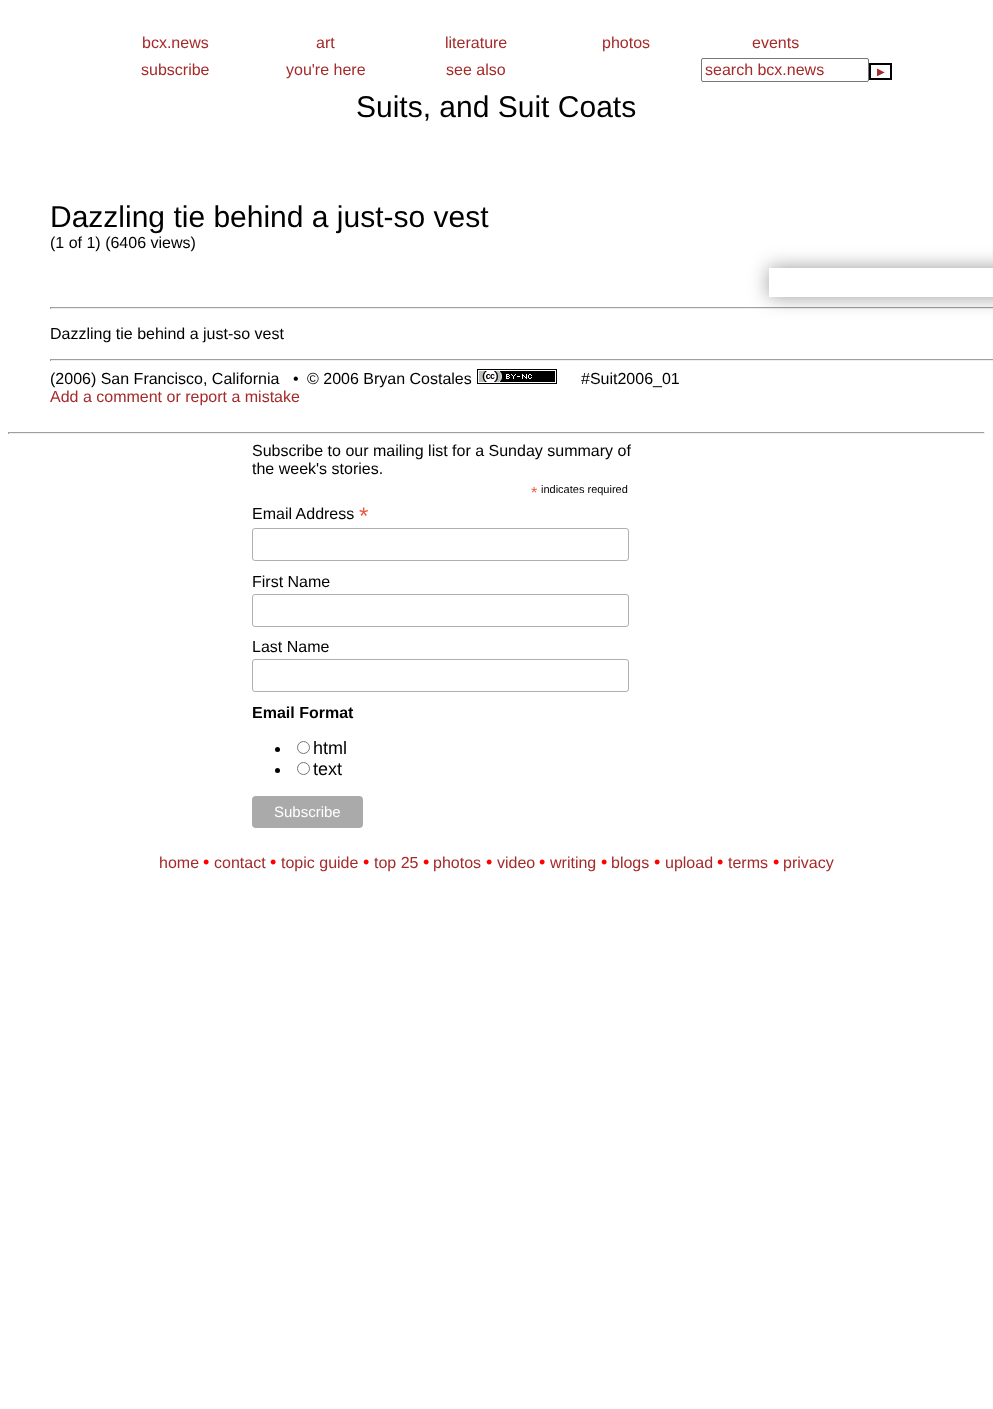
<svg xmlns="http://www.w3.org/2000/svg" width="993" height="1409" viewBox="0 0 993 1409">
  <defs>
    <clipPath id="clip1"><path d="M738 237H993V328H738ZM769 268H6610V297H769Z" clip-rule="evenodd"/></clipPath>
    <filter id="blur1" x="-50%" y="-200%" width="200%" height="500%"><feGaussianBlur stdDeviation="10"/></filter>
  </defs>
  <rect width="100%" height="100%" fill="#ffffff"/>
  <text x="142" y="48" font-family="Liberation Sans" font-size="16" fill="#a52a2a">bcx.news</text>
  <text x="316" y="48" font-family="Liberation Sans" font-size="16" fill="#a52a2a">art</text>
  <text x="445" y="48" font-family="Liberation Sans" font-size="16" fill="#a52a2a">literature</text>
  <text x="602" y="48" font-family="Liberation Sans" font-size="16" fill="#a52a2a">photos</text>
  <text x="752" y="48" font-family="Liberation Sans" font-size="16" fill="#a52a2a">events</text>
  <text x="141" y="75" font-family="Liberation Sans" font-size="16" fill="#a52a2a">subscribe</text>
  <text x="286" y="75" font-family="Liberation Sans" font-size="16" fill="#a52a2a">you're here</text>
  <text x="446" y="75" font-family="Liberation Sans" font-size="16" fill="#a52a2a">see also</text>
  <rect x="701.5" y="58.5" width="167" height="23" rx="1.5" fill="none" stroke="#767676"/>
  <text x="705" y="75" font-family="Liberation Sans" font-size="16" fill="#a52a2a">search bcx.news</text>
  <rect x="870" y="64" width="21" height="15" fill="none" stroke="#000000" stroke-width="2"/>
  <text x="877" y="75" font-family="DejaVu Sans" font-size="10" fill="#a52a2a">▶</text>
  <text x="356" y="117" font-family="Liberation Sans" font-size="30" fill="#000000">Suits, and Suit Coats</text>
  <text x="50" y="227" font-family="Liberation Sans" font-size="30" fill="#000000">Dazzling tie behind a just-so vest</text>
  <text x="50" y="248" font-family="Liberation Sans" font-size="16" fill="#000000">(1 of 1) (6406 views)</text>
  <rect x="50" y="307" width="943" height="1" fill="#9f9f9f"/>
  <rect x="50" y="308" width="943" height="1" fill="#eeeeee"/>
  <g clip-path="url(#clip1)">
    <rect x="769" y="268" width="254" height="29" fill="#000000" fill-opacity="0.4" filter="url(#blur1)"/>
  </g>
  <rect x="50" y="307" width="1" height="2" fill="#9f9f9f"/>
  <text x="50" y="339" font-family="Liberation Sans" font-size="16" fill="#000000">Dazzling tie behind a just-so vest</text>
  <rect x="50" y="359" width="943" height="1" fill="#9f9f9f"/>
  <rect x="50" y="360" width="943" height="1" fill="#eeeeee"/>
  <rect x="50" y="359" width="1" height="2" fill="#9f9f9f"/>
  <text x="50" y="384" font-family="Liberation Sans" font-size="16" fill="#000000">(2006) San Francisco, California</text>
  <text x="293" y="384" font-family="Liberation Sans" font-size="16" fill="#000000">•</text>
  <text x="307" y="384" font-family="Liberation Sans" font-size="16" fill="#000000">© 2006 Bryan Costales</text>
  <image x="477" y="369" width="80" height="15" href="img1.png"/>
  <text x="581" y="384" font-family="Liberation Sans" font-size="16" fill="#000000">#Suit2006_01</text>
  <text x="50" y="402" font-family="Liberation Sans" font-size="16" fill="#a52a2a">Add a comment or report a mistake</text>
  <rect x="8" y="432" width="977" height="1" fill="#9f9f9f"/>
  <rect x="984" y="432" width="1" height="2" fill="#eeeeee"/>
  <rect x="8" y="433" width="977" height="1" fill="#eeeeee"/>
  <rect x="8" y="432" width="1" height="2" fill="#9f9f9f"/>
  <text x="252" y="456" font-family="Liberation Sans" font-size="16" fill="#000000">Subscribe to our mailing list for a Sunday summary of</text>
  <text x="252" y="474" font-family="Liberation Sans" font-size="16" fill="#000000">the week's stories.</text>
  <text x="531" y="498" font-family="Liberation Sans" font-size="16" fill="#e85c41">*</text>
  <text x="541" y="493" font-family="Liberation Sans" font-size="11" fill="#000000">indicates required</text>
  <text x="252" y="519" font-family="Liberation Sans" font-size="16" fill="#000000">Email Address</text>
  <text x="359" y="524" font-family="Liberation Sans" font-size="24" fill="#e85c41">*</text>
  <rect x="252.5" y="528.5" width="376" height="32" rx="2.5" fill="none" stroke="#abb0b2"/>
  <text x="252" y="587" font-family="Liberation Sans" font-size="16" fill="#000000">First Name</text>
  <rect x="252.5" y="594.5" width="376" height="32" rx="2.5" fill="none" stroke="#abb0b2"/>
  <text x="252" y="652" font-family="Liberation Sans" font-size="16" fill="#000000">Last Name</text>
  <rect x="252.5" y="659.5" width="376" height="32" rx="2.5" fill="none" stroke="#abb0b2"/>
  <text x="252" y="718" font-family="Liberation Sans" font-size="16" font-weight="bold" fill="#000000">Email Format</text>
  <circle cx="277.5" cy="749.5" r="2.5" fill="#000000"/>
  <circle cx="303.5" cy="747.5" r="6" fill="none" stroke="#767676"/>
  <text x="313" y="754" font-family="Liberation Sans" font-size="18" fill="#000000">html</text>
  <circle cx="277.5" cy="770.5" r="2.5" fill="#000000"/>
  <circle cx="303.5" cy="768.5" r="6" fill="none" stroke="#767676"/>
  <text x="313" y="775" font-family="Liberation Sans" font-size="18" fill="#000000">text</text>
  <rect x="252" y="796" width="111" height="32" rx="4" fill="#aaaaaa"/>
  <text x="274" y="817" font-family="Liberation Sans" font-size="15" fill="#ffffff">Subscribe</text>
  <text x="159" y="868" font-family="Liberation Sans" font-size="16" fill="#a52a2a">home</text>
  <text x="203" y="868" font-family="Liberation Sans" font-size="18" fill="#ff0000">•</text>
  <text x="214" y="868" font-family="Liberation Sans" font-size="16" fill="#a52a2a">contact</text>
  <text x="270" y="868" font-family="Liberation Sans" font-size="18" fill="#ff0000">•</text>
  <text x="281" y="868" font-family="Liberation Sans" font-size="16" fill="#a52a2a">topic guide</text>
  <text x="363" y="868" font-family="Liberation Sans" font-size="18" fill="#ff0000">•</text>
  <text x="374" y="868" font-family="Liberation Sans" font-size="16" fill="#a52a2a">top 25</text>
  <text x="423" y="868" font-family="Liberation Sans" font-size="18" fill="#ff0000">•</text>
  <text x="433" y="868" font-family="Liberation Sans" font-size="16" fill="#a52a2a">photos</text>
  <text x="486" y="868" font-family="Liberation Sans" font-size="18" fill="#ff0000">•</text>
  <text x="497" y="868" font-family="Liberation Sans" font-size="16" fill="#a52a2a">video</text>
  <text x="539" y="868" font-family="Liberation Sans" font-size="18" fill="#ff0000">•</text>
  <text x="550" y="868" font-family="Liberation Sans" font-size="16" fill="#a52a2a">writing</text>
  <text x="601" y="868" font-family="Liberation Sans" font-size="18" fill="#ff0000">•</text>
  <text x="611" y="868" font-family="Liberation Sans" font-size="16" fill="#a52a2a">blogs</text>
  <text x="654" y="868" font-family="Liberation Sans" font-size="18" fill="#ff0000">•</text>
  <text x="665" y="868" font-family="Liberation Sans" font-size="16" fill="#a52a2a">upload</text>
  <text x="717" y="868" font-family="Liberation Sans" font-size="18" fill="#ff0000">•</text>
  <text x="728" y="868" font-family="Liberation Sans" font-size="16" fill="#a52a2a">terms</text>
  <text x="773" y="868" font-family="Liberation Sans" font-size="18" fill="#ff0000">•</text>
  <text x="783" y="868" font-family="Liberation Sans" font-size="16" fill="#a52a2a">privacy</text>
</svg>
